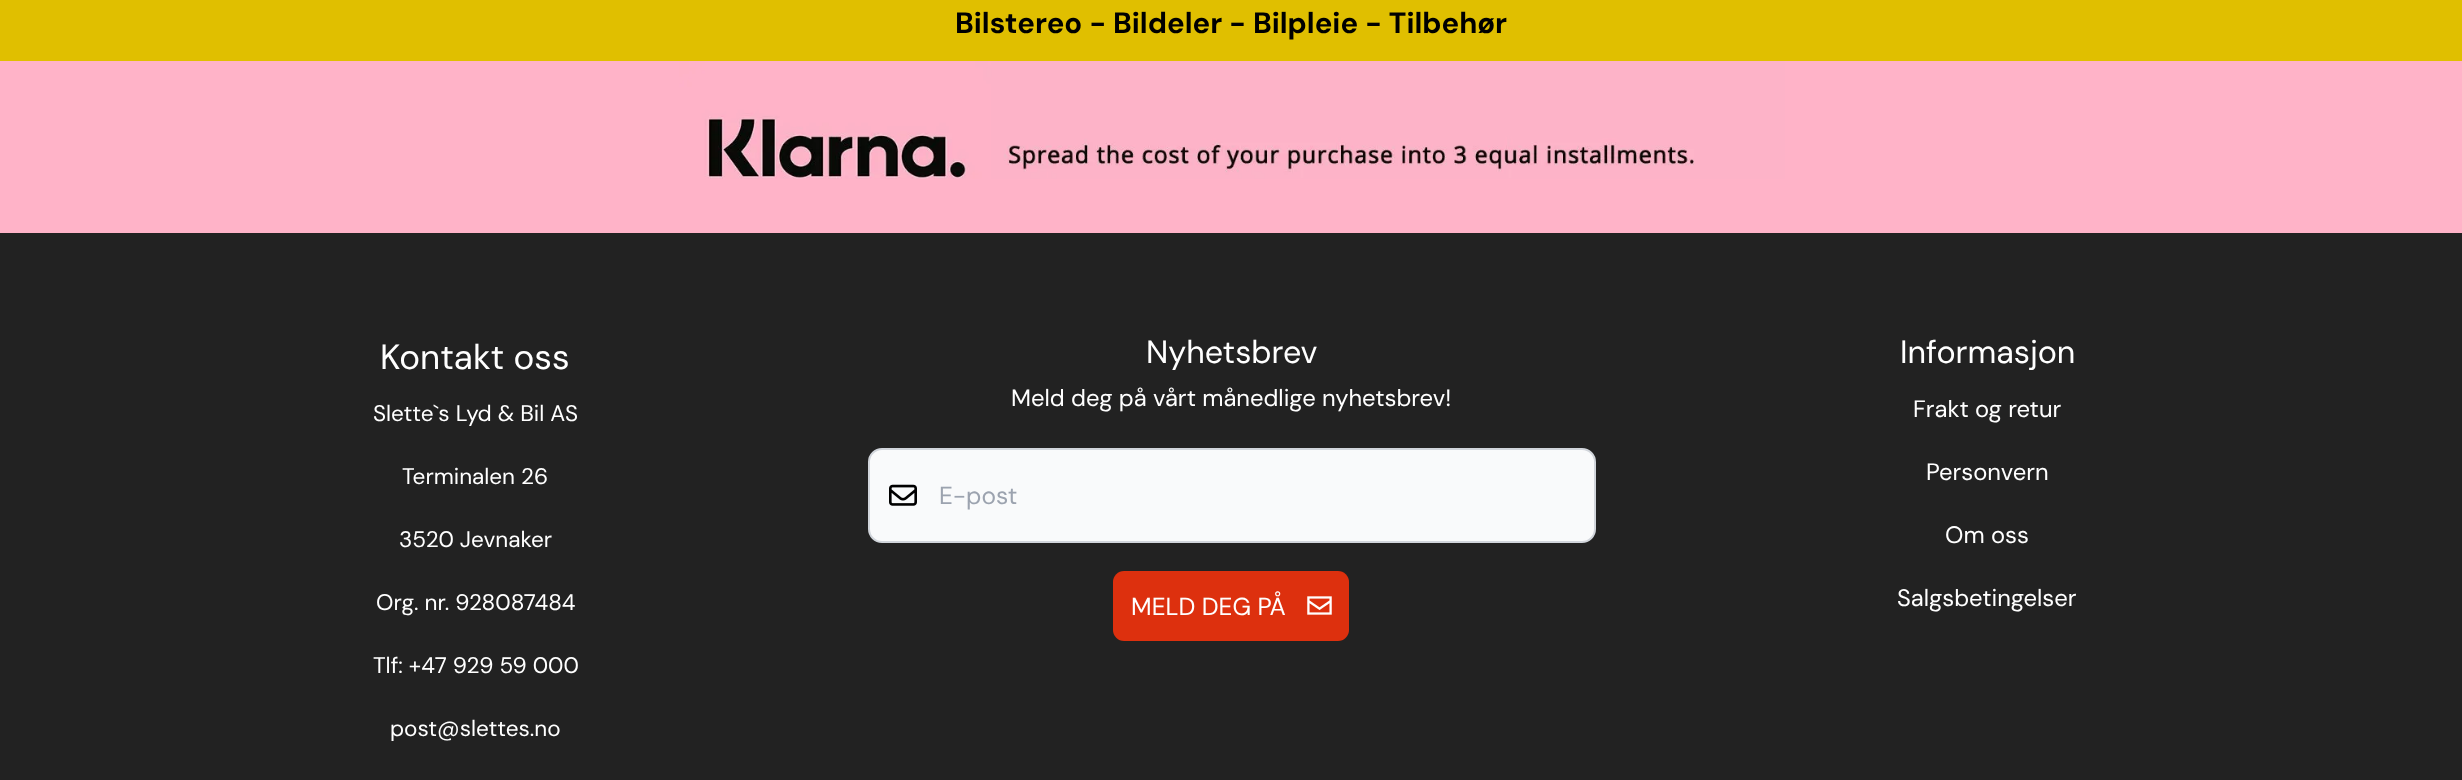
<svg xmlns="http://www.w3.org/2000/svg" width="2462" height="780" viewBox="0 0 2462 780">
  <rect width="100%" height="100%" fill="#222222"/>
  <rect x="0" y="0" width="2462" height="61" fill="#e0bf00"/>
  <text x="955" y="33" font-family="DM Sans" font-size="29.4" font-weight="bold" fill="#000000">Bilstereo - Bildeler - Bilpleie - Tilbehør</text>
  <rect x="0" y="61" width="2462" height="172" fill="#ffb3c8"/>
  <image x="679" y="61" width="1106" height="118" href="img1.png"/>
  <text x="380" y="369" font-family="DM Sans" font-size="35" fill="#ffffff">Kontakt oss</text>
  <text x="373" y="421" font-family="DM Sans" font-size="22.5" fill="#ffffff">Slette`s Lyd &amp; Bil AS</text>
  <text x="402" y="484" font-family="DM Sans" font-size="22.5" fill="#ffffff">Terminalen 26</text>
  <text x="399" y="547" font-family="DM Sans" font-size="22.5" fill="#ffffff">3520 Jevnaker</text>
  <text x="376" y="610" font-family="DM Sans" font-size="22.5" fill="#ffffff">Org. nr. 928087484</text>
  <text x="373" y="673" font-family="DM Sans" font-size="22.5" fill="#ffffff">Tlf: +47 929 59 000</text>
  <text x="390" y="736" font-family="DM Sans" font-size="22.5" fill="#ffffff">post@slettes.no</text>
  <text x="1146" y="363" font-family="DM Sans" font-size="32.25" fill="#ffffff">Nyhetsbrev</text>
  <text x="1011" y="406" font-family="DM Sans" font-size="23.75" fill="#ffffff">Meld deg på vårt månedlige nyhetsbrev!</text>
  <rect x="869" y="449" width="726" height="93" rx="13" fill="#f9fafb" stroke="#d1d5db" stroke-width="2"/>
  <image x="889" y="484" width="28" height="22" href="img2.png"/>
  <text x="939" y="504" font-family="DM Sans" font-size="24.5" fill="#9ca3af">E-post</text>
  <rect x="1113" y="571" width="236" height="70" rx="11" fill="#dd300e"/>
  <text x="1131" y="615" font-family="DM Sans" font-size="24.5" fill="#ffffff">MELD DEG PÅ</text>
  <image x="1307" y="596" width="25" height="19" href="img3.png"/>
  <text x="1900" y="363" font-family="DM Sans" font-size="32.25" fill="#ffffff">Informasjon</text>
  <text x="1913" y="417" font-family="DM Sans" font-size="23.75" fill="#ffffff">Frakt og retur</text>
  <text x="1926" y="480" font-family="DM Sans" font-size="23.75" fill="#ffffff">Personvern</text>
  <text x="1945" y="543" font-family="DM Sans" font-size="23.75" fill="#ffffff">Om oss</text>
  <text x="1897" y="606" font-family="DM Sans" font-size="23.75" fill="#ffffff">Salgsbetingelser</text>
</svg>
